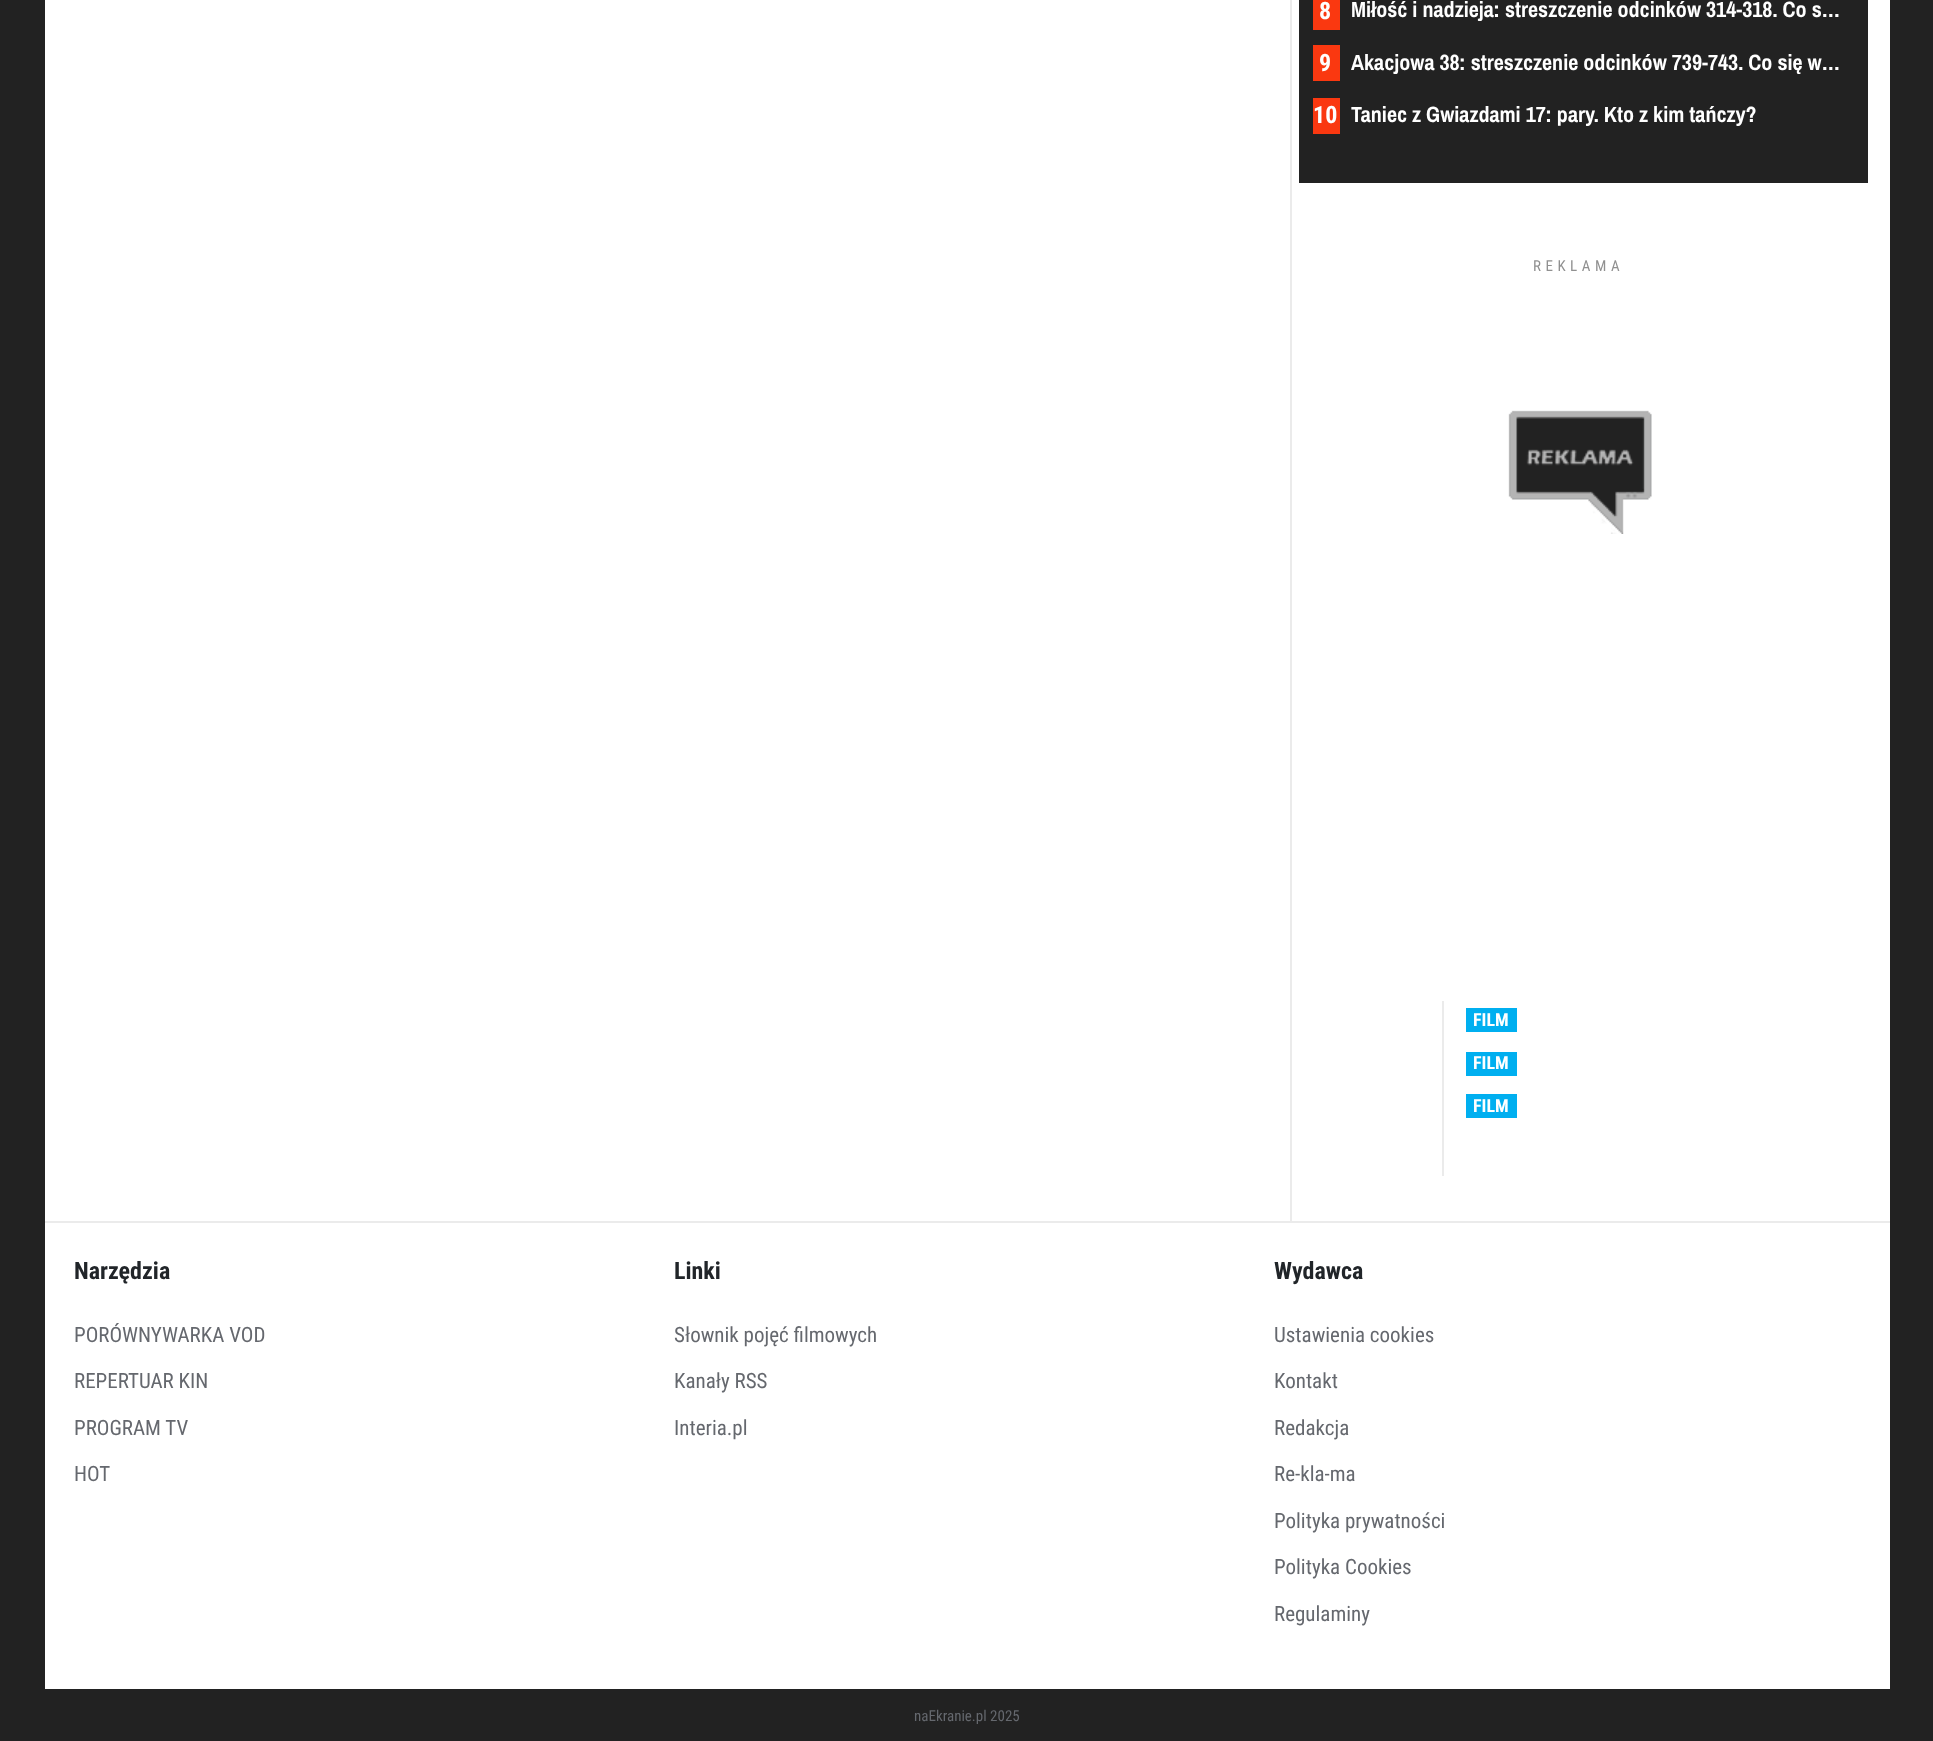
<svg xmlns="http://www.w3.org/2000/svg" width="1933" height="1741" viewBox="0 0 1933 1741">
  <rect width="100%" height="100%" fill="#222222"/>
  <rect x="45" y="0" width="1845" height="1221" fill="#ffffff"/>
  <rect x="1290" y="0" width="2" height="1221" fill="#ebebeb"/>
  <rect x="1299" y="0" width="569" height="183" fill="#222222"/>
  <rect x="1313" y="0" width="27" height="30" fill="#fa3810"/>
  <text x="1319" y="19" font-family="Roboto Condensed" font-size="24" font-weight="bold" fill="#ffffff">8</text>
  <text x="1351" y="17" font-family="Pragati Narrow" font-size="24" font-weight="bold" fill="#ffffff">Miłość i nadzieja: streszczenie odcinków 314-318. Co s…</text>
  <rect x="1313" y="45" width="27" height="36" fill="#fa3810"/>
  <text x="1319" y="71" font-family="Roboto Condensed" font-size="24" font-weight="bold" fill="#ffffff">9</text>
  <text x="1351" y="70" font-family="Pragati Narrow" font-size="24" font-weight="bold" fill="#ffffff">Akacjowa 38: streszczenie odcinków 739-743. Co się w…</text>
  <rect x="1313" y="98" width="27" height="36" fill="#fa3810"/>
  <text x="1313" y="123" font-family="Roboto Condensed" font-size="24" font-weight="bold" fill="#ffffff">10</text>
  <text x="1351" y="122" font-family="Pragati Narrow" font-size="24" font-weight="bold" fill="#ffffff">Taniec z Gwiazdami 17: pary. Kto z kim tańczy?</text>
  <text x="1533" y="271" font-family="Roboto Condensed" font-size="15" letter-spacing="4.5" fill="#909090">REKLAMA</text>
  <image x="1508" y="410" width="144" height="124" href="img1.png"/>
  <rect x="1442" y="1001" width="2" height="175" fill="#ebebeb"/>
  <rect x="1466" y="1008" width="51" height="24" fill="#00aff0"/>
  <text x="1473" y="1026" font-family="Roboto Condensed" font-size="18" font-weight="bold" fill="#ffffff">FILM</text>
  <rect x="1466" y="1052" width="51" height="24" fill="#00aff0"/>
  <text x="1473" y="1069" font-family="Roboto Condensed" font-size="18" font-weight="bold" fill="#ffffff">FILM</text>
  <rect x="1466" y="1094" width="51" height="24" fill="#00aff0"/>
  <text x="1473" y="1112" font-family="Roboto Condensed" font-size="18" font-weight="bold" fill="#ffffff">FILM</text>
  <rect x="45" y="1221" width="1845" height="2" fill="#ebebeb"/>
  <rect x="45" y="1223" width="1845" height="466" fill="#ffffff"/>
  <text x="74" y="1279" font-family="Roboto Condensed" font-size="24" font-weight="bold" fill="#212529">Narzędzia</text>
  <text x="74" y="1342" font-family="Roboto Condensed" font-size="21" fill="#65686e">PORÓWNYWARKA VOD</text>
  <text x="74" y="1388" font-family="Roboto Condensed" font-size="21" fill="#65686e">REPERTUAR KIN</text>
  <text x="74" y="1435" font-family="Roboto Condensed" font-size="21" fill="#65686e">PROGRAM TV</text>
  <text x="74" y="1481" font-family="Roboto Condensed" font-size="21" fill="#65686e">HOT</text>
  <text x="674" y="1279" font-family="Roboto Condensed" font-size="24" font-weight="bold" fill="#212529">Linki</text>
  <text x="674" y="1342" font-family="Roboto Condensed" font-size="21" fill="#65686e">Słownik pojęć filmowych</text>
  <text x="674" y="1388" font-family="Roboto Condensed" font-size="21" fill="#65686e">Kanały RSS</text>
  <text x="674" y="1435" font-family="Roboto Condensed" font-size="21" fill="#65686e">Interia.pl</text>
  <text x="1274" y="1279" font-family="Roboto Condensed" font-size="24" font-weight="bold" fill="#212529">Wydawca</text>
  <text x="1274" y="1342" font-family="Roboto Condensed" font-size="21" fill="#65686e">Ustawienia cookies</text>
  <text x="1274" y="1388" font-family="Roboto Condensed" font-size="21" fill="#65686e">Kontakt</text>
  <text x="1274" y="1435" font-family="Roboto Condensed" font-size="21" fill="#65686e">Redakcja</text>
  <text x="1274" y="1481" font-family="Roboto Condensed" font-size="21" fill="#65686e">Re-kla-ma</text>
  <text x="1274" y="1528" font-family="Roboto Condensed" font-size="21" fill="#65686e">Polityka prywatności</text>
  <text x="1274" y="1574" font-family="Roboto Condensed" font-size="21" fill="#65686e">Polityka Cookies</text>
  <text x="1274" y="1621" font-family="Roboto Condensed" font-size="21" fill="#65686e">Regulaminy</text>
  <text x="914" y="1721" font-family="Roboto Condensed" font-size="15" fill="#65686e">naEkranie.pl 2025</text>
</svg>
